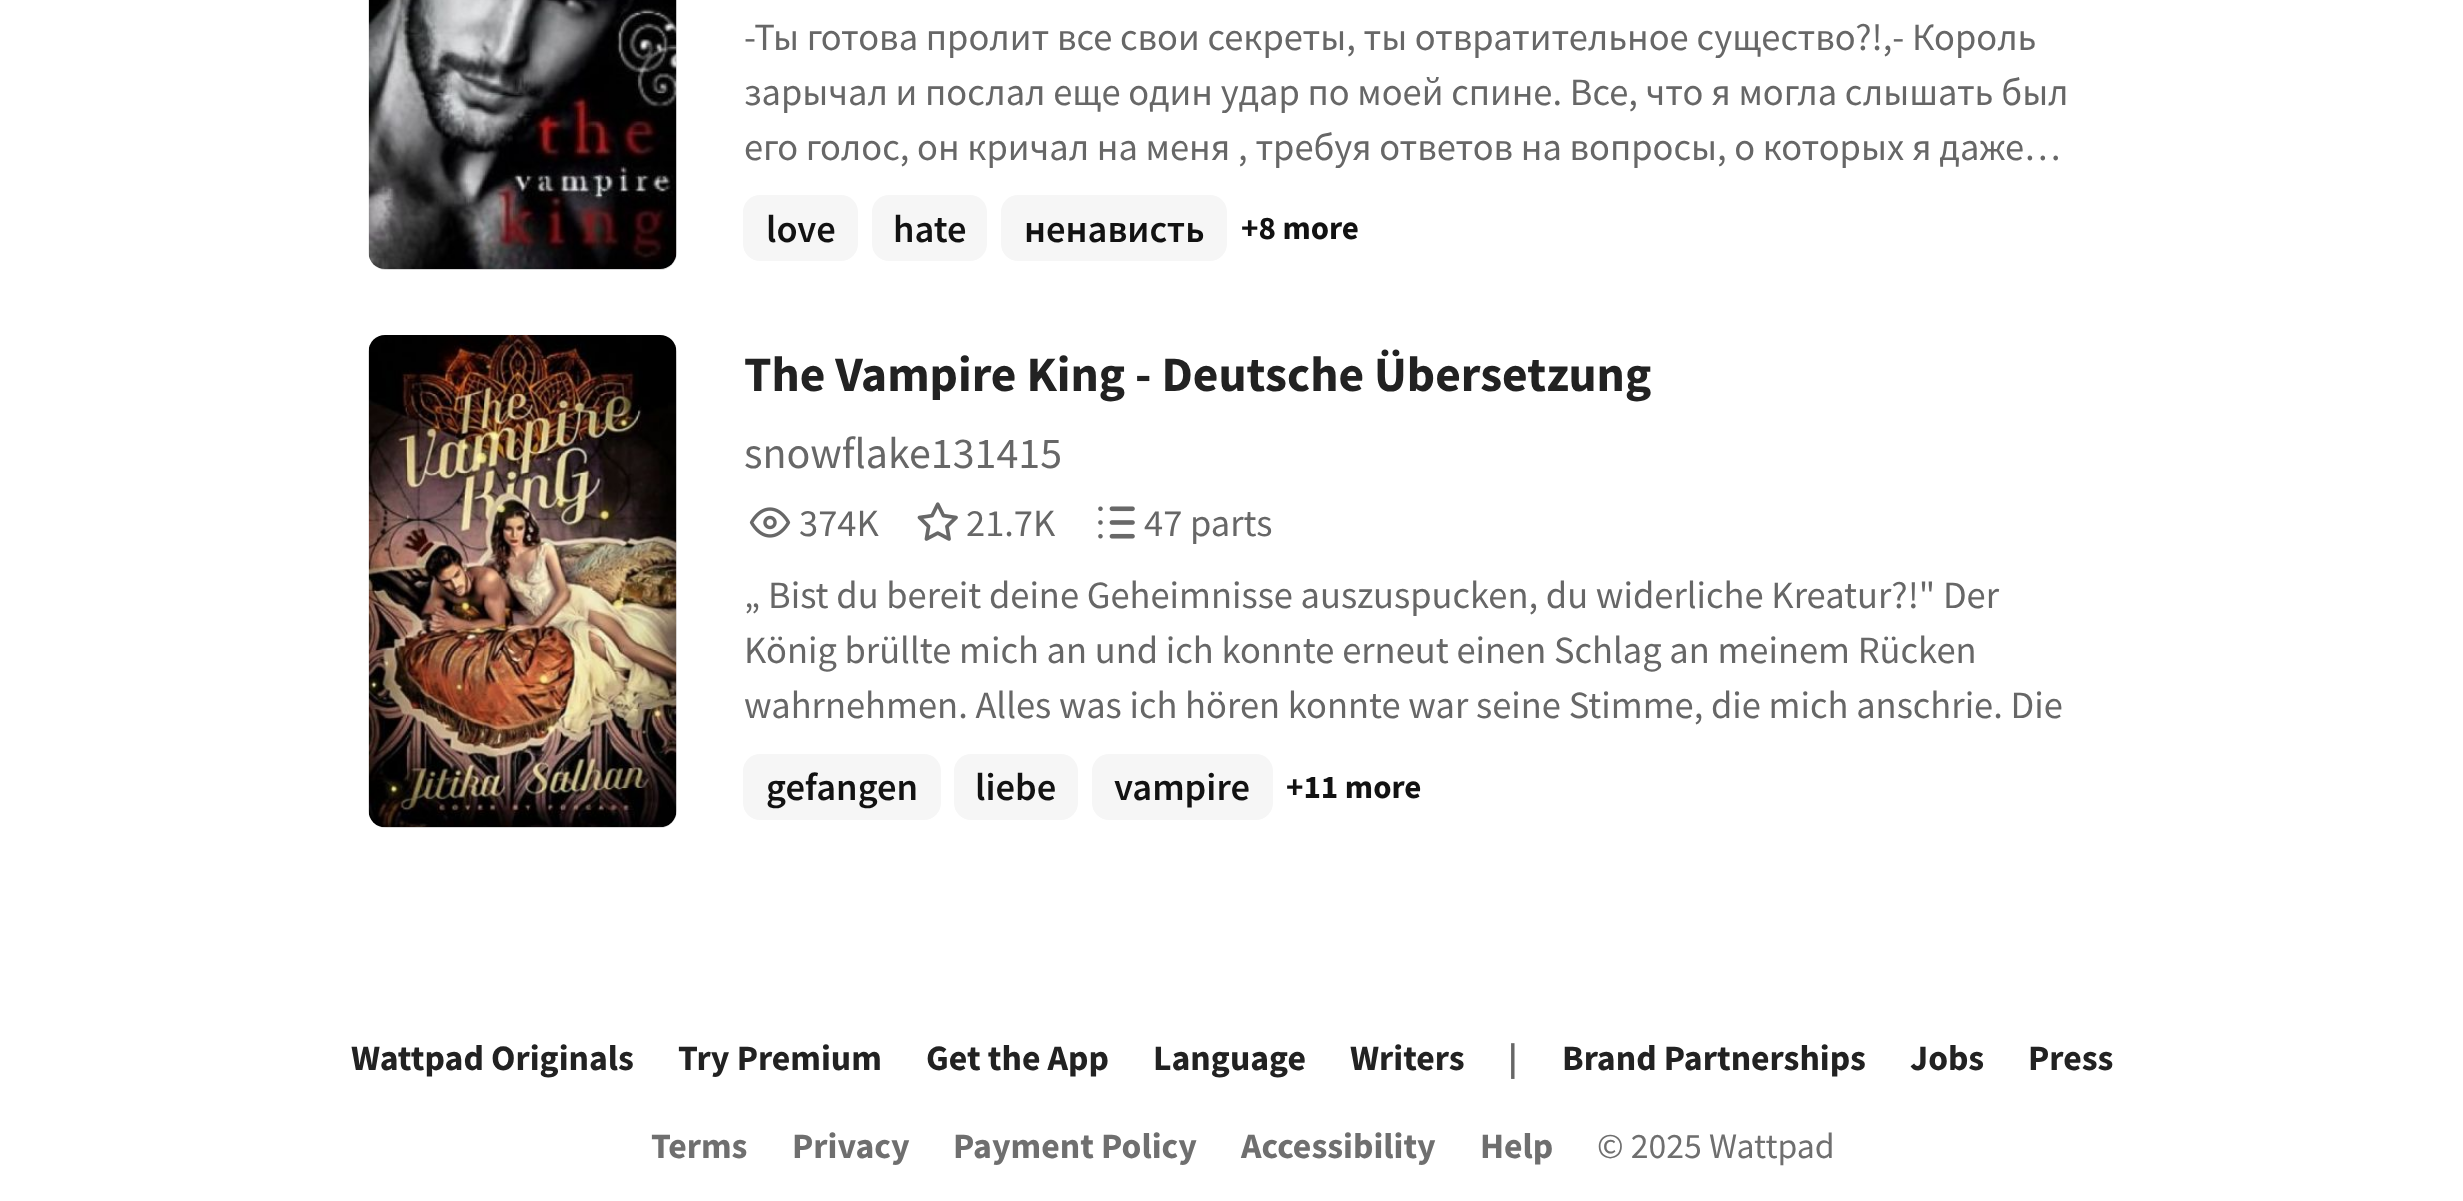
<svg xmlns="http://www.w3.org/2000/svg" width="2463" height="1201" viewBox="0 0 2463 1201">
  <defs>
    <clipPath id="clip1"><rect x="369" y="-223" width="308" height="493" rx="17"/></clipPath>
    <filter id="blur1" x="-50%" y="-200%" width="200%" height="500%"><feGaussianBlur stdDeviation="19"/></filter>
    <filter id="blur2" x="-50%" y="-200%" width="200%" height="500%"><feGaussianBlur stdDeviation="14"/></filter>
    <clipPath id="clip2"><rect x="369" y="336" width="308" height="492" rx="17"/></clipPath>
  </defs>
  <rect width="100%" height="100%" fill="#ffffff"/>
  <g clip-path="url(#clip1)">
    <rect x="363" y="-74" width="319" height="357" rx="17" fill="#222222" fill-opacity="0.08" filter="url(#blur1)"/>
    <rect x="366" y="-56" width="313" height="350" rx="14" fill="#222222" fill-opacity="0.1" filter="url(#blur2)"/>
  </g>
  <image x="368" y="0" width="309" height="269" href="img1.png"/>
  <text x="744" y="50" font-family="Source Sans Pro" font-size="38.5" fill="#676767">-Ты готова пролит все свои секреты, ты отвратительное существо?!,- Король</text>
  <text x="744" y="105" font-family="Source Sans Pro" font-size="38.5" fill="#676767">зарычал и послал еще один удар по моей спине. Все, что я могла слышать был</text>
  <text x="744" y="160" font-family="Source Sans Pro" font-size="38.5" fill="#676767">его голос, он кричал на меня , требуя ответов на вопросы, о которых я даже…</text>
  <rect x="743" y="195" width="115" height="66" rx="17" fill="#f6f6f6"/>
  <text x="766" y="242" font-family="Source Sans Pro" font-size="38.5" font-weight="600" fill="#121212">love</text>
  <rect x="872" y="195" width="115" height="66" rx="17" fill="#f6f6f6"/>
  <text x="893" y="242" font-family="Source Sans Pro" font-size="38.5" font-weight="600" fill="#121212">hate</text>
  <rect x="1001" y="195" width="226" height="66" rx="17" fill="#f6f6f6"/>
  <text x="1024" y="242" font-family="Source Sans Pro" font-size="38.5" font-weight="600" fill="#121212">ненависть</text>
  <text x="1241" y="239" font-family="Source Sans Pro" font-size="33" font-weight="bold" fill="#121212">+8 more</text>
  <g clip-path="url(#clip2)">
    <rect x="363" y="338" width="319" height="504" rx="17" fill="#222222" fill-opacity="0.08" filter="url(#blur1)"/>
    <rect x="366" y="355" width="313" height="498" rx="14" fill="#222222" fill-opacity="0.1" filter="url(#blur2)"/>
  </g>
  <image x="368" y="335" width="309" height="492" href="img2.png"/>
  <text x="744" y="391" font-family="Source Sans Pro" font-size="49.5" font-weight="bold" fill="#222222">The Vampire King - Deutsche Übersetzung</text>
  <text x="744" y="468" font-family="Source Sans Pro" font-size="44" fill="#676767">snowflake131415</text>
  <image x="749" y="507" width="42" height="31" href="img3.png"/>
  <text x="799" y="536" font-family="Source Sans Pro" font-size="38.5" fill="#676767">374K</text>
  <image x="917" y="502" width="41" height="39" href="img4.png"/>
  <text x="966" y="536" font-family="Source Sans Pro" font-size="38.5" fill="#676767">21.7K</text>
  <image x="1098" y="506" width="37" height="33" href="img5.png"/>
  <text x="1144" y="536" font-family="Source Sans Pro" font-size="38.5" fill="#676767">47 parts</text>
  <text x="744" y="608" font-family="Source Sans Pro" font-size="38.5" fill="#676767">„ Bist du bereit deine Geheimnisse auszuspucken, du widerliche Kreatur?!" Der</text>
  <text x="744" y="663" font-family="Source Sans Pro" font-size="38.5" fill="#676767">König brüllte mich an und ich konnte erneut einen Schlag an meinem Rücken</text>
  <text x="744" y="718" font-family="Source Sans Pro" font-size="38.5" fill="#676767">wahrnehmen. Alles was ich hören konnte war seine Stimme, die mich anschrie. Die</text>
  <rect x="743" y="754" width="198" height="66" rx="17" fill="#f6f6f6"/>
  <text x="766" y="800" font-family="Source Sans Pro" font-size="38.5" font-weight="600" fill="#121212">gefangen</text>
  <rect x="954" y="754" width="124" height="66" rx="17" fill="#f6f6f6"/>
  <text x="975" y="800" font-family="Source Sans Pro" font-size="38.5" font-weight="600" fill="#121212">liebe</text>
  <rect x="1092" y="754" width="181" height="66" rx="17" fill="#f6f6f6"/>
  <text x="1114" y="800" font-family="Source Sans Pro" font-size="38.5" font-weight="600" fill="#121212">vampire</text>
  <text x="1286" y="798" font-family="Source Sans Pro" font-size="33" font-weight="bold" fill="#121212">+11 more</text>
  <text x="351" y="1070" font-family="Source Sans Pro" font-size="35.75" font-weight="bold" fill="#222222">Wattpad Originals</text>
  <text x="678" y="1070" font-family="Source Sans Pro" font-size="35.75" font-weight="bold" fill="#222222">Try Premium</text>
  <text x="926" y="1070" font-family="Source Sans Pro" font-size="35.75" font-weight="bold" fill="#222222">Get the App</text>
  <text x="1153" y="1070" font-family="Source Sans Pro" font-size="35.75" font-weight="bold" fill="#222222">Language</text>
  <text x="1350" y="1070" font-family="Source Sans Pro" font-size="35.75" font-weight="bold" fill="#222222">Writers</text>
  <text x="1508" y="1070" font-family="Source Sans Pro" font-size="35.75" font-weight="bold" fill="#676767">|</text>
  <text x="1562" y="1070" font-family="Source Sans Pro" font-size="35.75" font-weight="bold" fill="#222222">Brand Partnerships</text>
  <text x="1910" y="1070" font-family="Source Sans Pro" font-size="35.75" font-weight="bold" fill="#222222">Jobs</text>
  <text x="2028" y="1070" font-family="Source Sans Pro" font-size="35.75" font-weight="bold" fill="#222222">Press</text>
  <text x="651" y="1158" font-family="Source Sans Pro" font-size="35.75" font-weight="bold" fill="#6f6f6f">Terms</text>
  <text x="792" y="1158" font-family="Source Sans Pro" font-size="35.75" font-weight="bold" fill="#6f6f6f">Privacy</text>
  <text x="953" y="1158" font-family="Source Sans Pro" font-size="35.75" font-weight="bold" fill="#6f6f6f">Payment Policy</text>
  <text x="1241" y="1158" font-family="Source Sans Pro" font-size="35.75" font-weight="bold" fill="#6f6f6f">Accessibility</text>
  <text x="1480" y="1158" font-family="Source Sans Pro" font-size="35.75" font-weight="bold" fill="#6f6f6f">Help</text>
  <text x="1597" y="1158" font-family="Source Sans Pro" font-size="35.75" fill="#6f6f6f">© 2025 Wattpad</text>
</svg>
